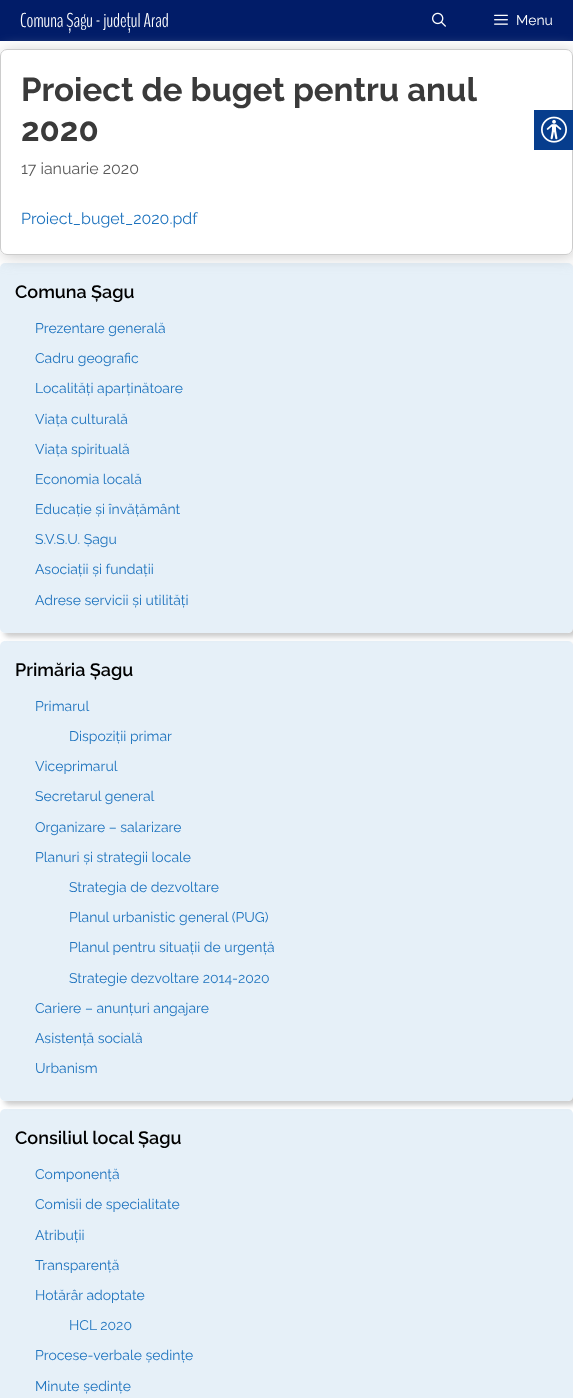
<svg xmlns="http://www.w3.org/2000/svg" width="573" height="1398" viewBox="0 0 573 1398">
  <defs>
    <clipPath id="clip1"><path d="M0 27H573V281H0ZM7 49H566C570 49 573 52 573 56V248C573 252 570 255 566 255H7C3 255 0 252 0 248V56C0 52 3 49 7 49Z" clip-rule="evenodd"/></clipPath>
    <filter id="blur1" x="-50%" y="-200%" width="200%" height="500%"><feGaussianBlur stdDeviation="7.5"/></filter>
    <clipPath id="clip2"><path d="M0 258H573V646H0ZM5 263H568C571 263 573 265 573 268V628C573 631 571 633 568 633H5C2 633 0 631 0 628V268C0 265 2 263 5 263Z" clip-rule="evenodd"/></clipPath>
    <filter id="blur2" x="-50%" y="-200%" width="200%" height="500%"><feGaussianBlur stdDeviation="2.5"/></filter>
    <clipPath id="clip3"><path d="M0 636H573V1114H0ZM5 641H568C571 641 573 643 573 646V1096C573 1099 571 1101 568 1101H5C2 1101 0 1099 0 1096V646C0 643 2 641 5 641Z" clip-rule="evenodd"/></clipPath>
  </defs>
  <rect width="100%" height="100%" fill="#ffffff"/>
  <rect x="0" y="0" width="573" height="41" fill="#011c68"/>
  <g clip-path="url(#clip1)">
    <rect x="2" y="51" width="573" height="206" rx="7" fill="#cccccc" filter="url(#blur1)"/>
  </g>
  <text x="20" y="27" font-family="BenchNine" font-size="20" font-weight="300" fill="#ffffff">Comuna Șagu - județul Arad</text>
  <image x="432" y="12" width="14" height="15" href="img1.png"/>
  <image x="494" y="14" width="14" height="11" href="img2.png"/>
  <text x="516" y="25" font-family="Raleway" font-size="14" fill="#ffffff">Menu</text>
  <rect x="0.5" y="49.5" width="572" height="205" rx="6.5" fill="none" stroke="#cccccc"/>
  <text x="21" y="101" font-family="Raleway" font-size="33" font-weight="bold" fill="#3a3a3a">Proiect de buget pentru anul</text>
  <text x="21" y="141" font-family="Raleway" font-size="33" font-weight="bold" fill="#3a3a3a">2020</text>
  <text x="21" y="174" font-family="Raleway" font-size="16" fill="#595959">17 ianuarie 2020</text>
  <text x="21" y="224" font-family="Raleway" font-size="16" fill="#1e73be">Proiect_buget_2020.pdf</text>
  <g clip-path="url(#clip2)">
    <rect x="4" y="267" width="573" height="370" rx="5" fill="#cccccc" filter="url(#blur2)"/>
  </g>
  <rect x="0" y="263" width="573" height="370" rx="5" fill="#1e72bd" fill-opacity="0.11"/>
  <text x="15" y="298" font-family="Raleway" font-size="18" font-weight="600" fill="#000000">Comuna Șagu</text>
  <text x="35" y="333" font-family="Raleway" font-size="14" fill="#1e73be">Prezentare generală</text>
  <text x="35" y="363" font-family="Raleway" font-size="14" fill="#1e73be">Cadru geografic</text>
  <text x="35" y="393" font-family="Raleway" font-size="14" fill="#1e73be">Localități aparținătoare</text>
  <text x="35" y="424" font-family="Raleway" font-size="14" fill="#1e73be">Viața culturală</text>
  <text x="35" y="454" font-family="Raleway" font-size="14" fill="#1e73be">Viața spirituală</text>
  <text x="35" y="484" font-family="Raleway" font-size="14" fill="#1e73be">Economia locală</text>
  <text x="35" y="514" font-family="Raleway" font-size="14" fill="#1e73be">Educație și învățământ</text>
  <text x="35" y="544" font-family="Raleway" font-size="14" fill="#1e73be">S.V.S.U. Șagu</text>
  <text x="35" y="574" font-family="Raleway" font-size="14" fill="#1e73be">Asociații și fundații</text>
  <text x="35" y="605" font-family="Raleway" font-size="14" fill="#1e73be">Adrese servicii și utilități</text>
  <g clip-path="url(#clip3)">
    <rect x="4" y="645" width="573" height="460" rx="5" fill="#cccccc" filter="url(#blur2)"/>
  </g>
  <rect x="0" y="641" width="573" height="460" rx="5" fill="#1e72bd" fill-opacity="0.11"/>
  <text x="15" y="676" font-family="Raleway" font-size="18" font-weight="600" fill="#000000">Primăria Șagu</text>
  <text x="35" y="711" font-family="Raleway" font-size="14" fill="#1e73be">Primarul</text>
  <text x="69" y="741" font-family="Raleway" font-size="14" fill="#1e73be">Dispoziții primar</text>
  <text x="35" y="771" font-family="Raleway" font-size="14" fill="#1e73be">Viceprimarul</text>
  <text x="35" y="801" font-family="Raleway" font-size="14" fill="#1e73be">Secretarul general</text>
  <text x="35" y="832" font-family="Raleway" font-size="14" fill="#1e73be">Organizare – salarizare</text>
  <text x="35" y="862" font-family="Raleway" font-size="14" fill="#1e73be">Planuri și strategii locale</text>
  <text x="69" y="892" font-family="Raleway" font-size="14" fill="#1e73be">Strategia de dezvoltare</text>
  <text x="69" y="922" font-family="Raleway" font-size="14" fill="#1e73be">Planul urbanistic general (PUG)</text>
  <text x="69" y="952" font-family="Raleway" font-size="14" fill="#1e73be">Planul pentru situații de urgență</text>
  <text x="69" y="983" font-family="Raleway" font-size="14" fill="#1e73be">Strategie dezvoltare 2014-2020</text>
  <text x="35" y="1013" font-family="Raleway" font-size="14" fill="#1e73be">Cariere – anunțuri angajare</text>
  <text x="35" y="1043" font-family="Raleway" font-size="14" fill="#1e73be">Asistență socială</text>
  <text x="35" y="1073" font-family="Raleway" font-size="14" fill="#1e73be">Urbanism</text>
  <rect x="0" y="1109" width="573" height="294" rx="5" fill="#1e72bd" fill-opacity="0.11"/>
  <text x="15" y="1144" font-family="Raleway" font-size="18" font-weight="600" fill="#000000">Consiliul local Șagu</text>
  <text x="35" y="1179" font-family="Raleway" font-size="14" fill="#1e73be">Componență</text>
  <text x="35" y="1209" font-family="Raleway" font-size="14" fill="#1e73be">Comisii de specialitate</text>
  <text x="35" y="1240" font-family="Raleway" font-size="14" fill="#1e73be">Atribuții</text>
  <text x="35" y="1270" font-family="Raleway" font-size="14" fill="#1e73be">Transparență</text>
  <text x="35" y="1300" font-family="Raleway" font-size="14" fill="#1e73be">Hotărâr adoptate</text>
  <text x="69" y="1330" font-family="Raleway" font-size="14" fill="#1e73be">HCL 2020</text>
  <text x="35" y="1360" font-family="Raleway" font-size="14" fill="#1e73be">Procese-verbale ședințe</text>
  <text x="35" y="1391" font-family="Raleway" font-size="14" fill="#1e73be">Minute ședințe</text>
  <rect x="534" y="110" width="39" height="40" fill="#063d8d"/>
  <image x="541" y="116" width="26" height="27" href="img3.png"/>
</svg>
